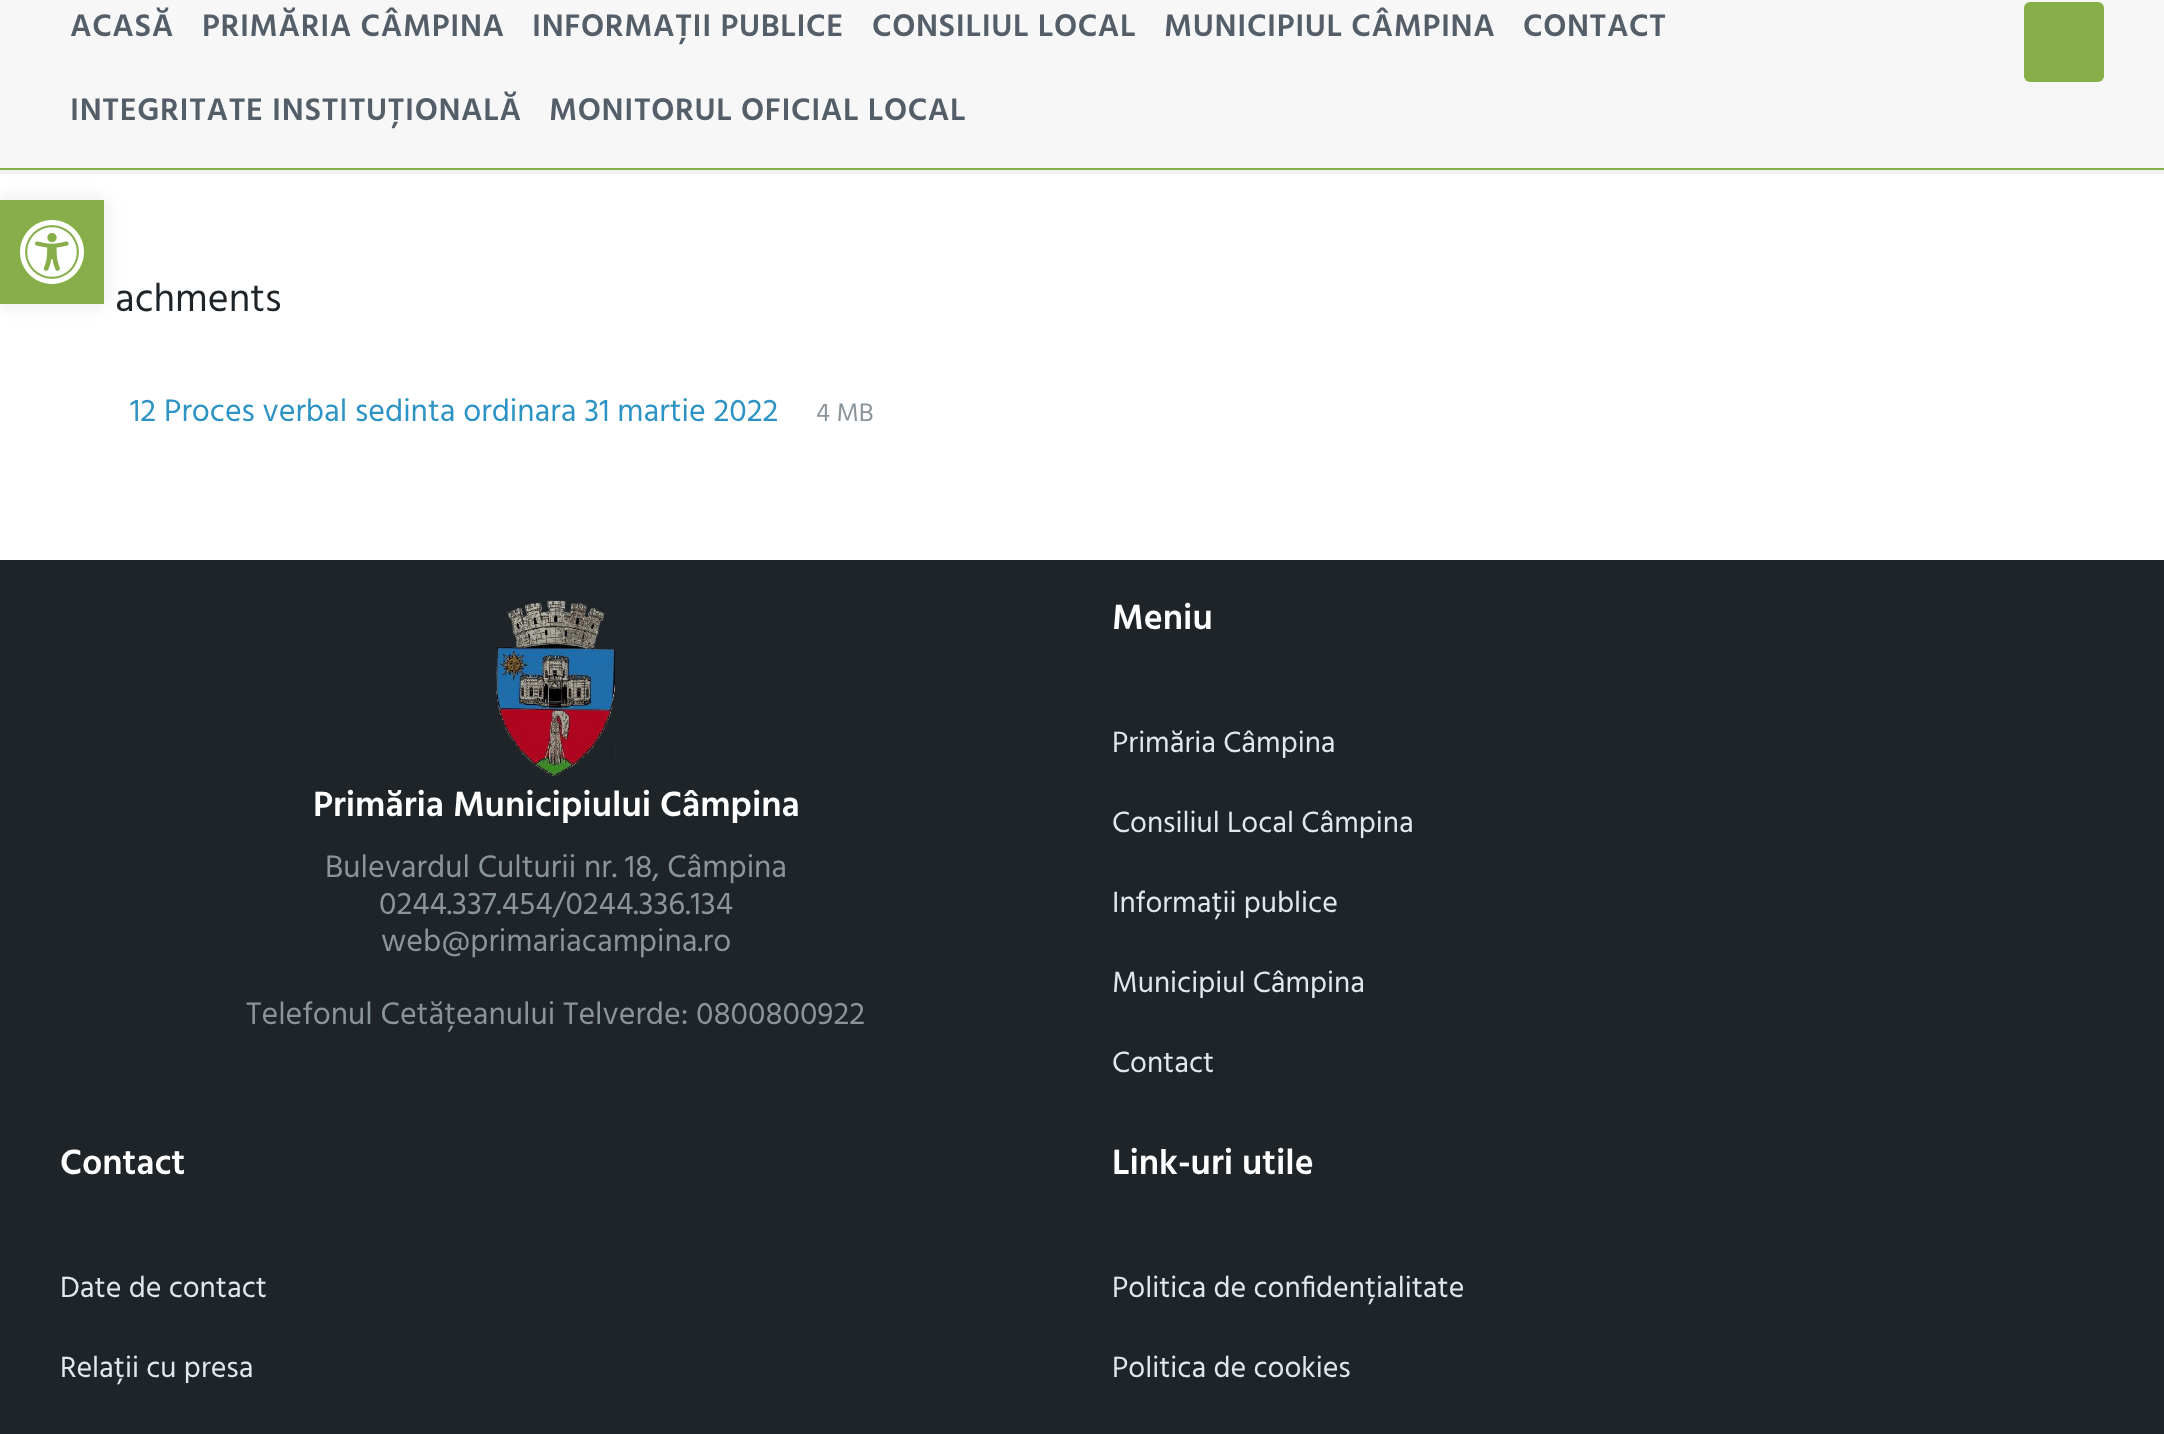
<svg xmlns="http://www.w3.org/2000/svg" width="2164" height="1434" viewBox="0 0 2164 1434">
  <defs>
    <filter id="blur1" x="-50%" y="-200%" width="200%" height="500%"><feGaussianBlur stdDeviation="10"/></filter>
  </defs>
  <rect width="100%" height="100%" fill="#ffffff"/>
  <rect x="-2" y="-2" width="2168" height="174" fill="none" stroke="#f2f2f2" stroke-width="4"/>
  <rect x="0" y="168" width="2164" height="2" fill="#86af49"/>
  <rect x="0" y="0" width="2164" height="168" fill="#f7f7f7"/>
  <text x="70" y="36" font-family="Hind" font-size="32" font-weight="600" letter-spacing="0.65" fill="#545e69">ACASĂ</text>
  <text x="202" y="36" font-family="Hind" font-size="32" font-weight="600" letter-spacing="0.65" fill="#545e69">PRIMĂRIA CÂMPINA</text>
  <text x="532" y="36" font-family="Hind" font-size="32" font-weight="600" letter-spacing="0.65" fill="#545e69">INFORMAȚII PUBLICE</text>
  <text x="872" y="36" font-family="Hind" font-size="32" font-weight="600" letter-spacing="0.65" fill="#545e69">CONSILIUL LOCAL</text>
  <text x="1164" y="36" font-family="Hind" font-size="32" font-weight="600" letter-spacing="0.65" fill="#545e69">MUNICIPIUL CÂMPINA</text>
  <text x="1523" y="36" font-family="Hind" font-size="32" font-weight="600" letter-spacing="0.65" fill="#545e69">CONTACT</text>
  <text x="70" y="120" font-family="Hind" font-size="32" font-weight="600" letter-spacing="0.65" fill="#545e69">INTEGRITATE INSTITUȚIONALĂ</text>
  <text x="549" y="120" font-family="Hind" font-size="32" font-weight="600" letter-spacing="0.65" fill="#545e69">MONITORUL OFICIAL LOCAL</text>
  <rect x="2024" y="2" width="80" height="80" rx="6" fill="#86af49"/>
  <text x="115" y="311" font-family="Hind" font-size="40" fill="#1e2427">achments</text>
  <text x="130" y="421" font-family="Hind" font-size="32" fill="#2d93c5">12 Proces verbal sedinta ordinara 31 martie 2022</text>
  <text x="816" y="421" font-family="Hind" font-size="26" fill="#8a949b">4 MB</text>
  <rect x="0" y="560" width="2164" height="874" fill="#1e2427"/>
  <image x="496" y="600" width="120" height="176" href="img1.png"/>
  <text x="313" y="816" font-family="Hind" font-size="36" font-weight="600" fill="#ffffff">Primăria Municipiului Câmpina</text>
  <text x="325" y="877" font-family="Hind" font-size="32" fill="#8a949b">Bulevardul Culturii nr. 18, Câmpina</text>
  <text x="379" y="914" font-family="Hind" font-size="32" fill="#8a949b">0244.337.454/0244.336.134</text>
  <text x="381" y="951" font-family="Hind" font-size="32" fill="#8a949b">web@primariacampina.ro</text>
  <text x="246" y="1024" font-family="Hind" font-size="32" fill="#8a949b">Telefonul Cetățeanului Telverde: 0800800922</text>
  <text x="1112" y="629" font-family="Hind" font-size="36" font-weight="600" fill="#ffffff">Meniu</text>
  <text x="1112" y="752" font-family="Hind" font-size="30" fill="#e1e7ec">Primăria Câmpina</text>
  <text x="1112" y="832" font-family="Hind" font-size="30" fill="#e1e7ec">Consiliul Local Câmpina</text>
  <text x="1112" y="912" font-family="Hind" font-size="30" fill="#e1e7ec">Informații publice</text>
  <text x="1112" y="992" font-family="Hind" font-size="30" fill="#e1e7ec">Municipiul Câmpina</text>
  <text x="1112" y="1072" font-family="Hind" font-size="30" fill="#e1e7ec">Contact</text>
  <text x="60" y="1174" font-family="Hind" font-size="36" font-weight="600" fill="#ffffff">Contact</text>
  <text x="60" y="1297" font-family="Hind" font-size="30" fill="#e1e7ec">Date de contact</text>
  <text x="60" y="1377" font-family="Hind" font-size="30" fill="#e1e7ec">Relații cu presa</text>
  <text x="1112" y="1174" font-family="Hind" font-size="36" font-weight="600" fill="#ffffff">Link-uri utile</text>
  <text x="1112" y="1297" font-family="Hind" font-size="30" fill="#e1e7ec">Politica de confidențialitate</text>
  <text x="1112" y="1377" font-family="Hind" font-size="30" fill="#e1e7ec">Politica de cookies</text>
  <rect x="0" y="200" width="104" height="104" fill="#000000" fill-opacity="0.1" filter="url(#blur1)"/>
  <rect x="0" y="200" width="104" height="104" fill="#86af49"/>
  <image x="20" y="220" width="64" height="64" href="img2.png"/>
</svg>
